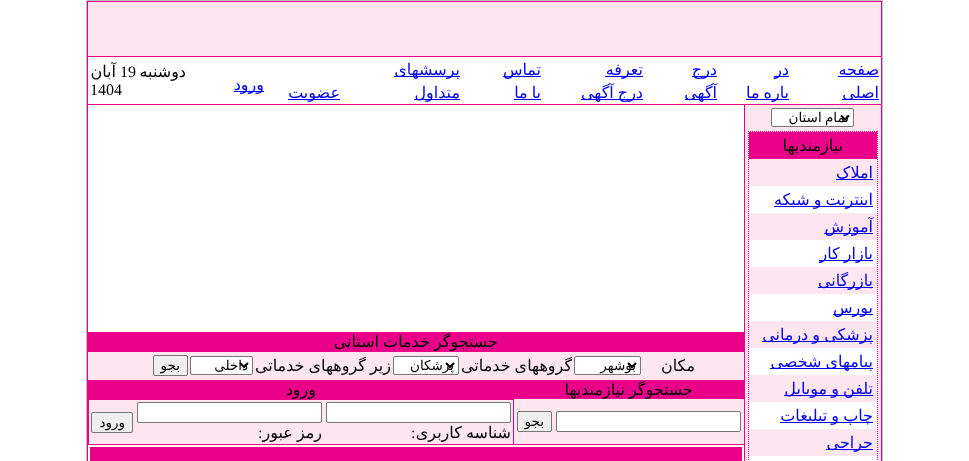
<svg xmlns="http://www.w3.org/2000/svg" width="969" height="461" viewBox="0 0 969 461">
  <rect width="100%" height="100%" fill="#ffffff"/>
  <rect x="86" y="0" width="797" height="461" fill="#c0c0c0"/>
  <rect x="88" y="57" width="793" height="404" fill="#ffffff"/>
  <rect x="87.5" y="1.5" width="794" height="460" fill="none" stroke="#eb008a"/>
  <rect x="88" y="2" width="793" height="54" fill="#fde6f0"/>
  <rect x="88" y="56" width="793" height="1" fill="#eb008a"/>
  <rect x="88" y="104" width="793" height="1" fill="#eb008a"/>
  <text x="879" y="75" font-family="DejaVu Sans" font-size="16" direction="rtl" fill="#0000ee">صفحه</text>
  <rect x="838" y="76" width="41" height="1" fill="#0000ee"/>
  <rect x="842" y="99" width="37" height="1" fill="#0000ee"/>
  <text x="879" y="98" font-family="DejaVu Sans" font-size="16" direction="rtl" fill="#0000ee">اصلی</text>
  <rect x="774" y="76" width="15" height="1" fill="#0000ee"/>
  <text x="789" y="75" font-family="DejaVu Sans" font-size="16" direction="rtl" fill="#0000ee">در</text>
  <rect x="746" y="99" width="43" height="1" fill="#0000ee"/>
  <text x="789" y="98" word-spacing="-1" font-family="DejaVu Sans" font-size="16" direction="rtl" fill="#0000ee">باره ما</text>
  <rect x="692" y="76" width="25" height="1" fill="#0000ee"/>
  <text x="717" y="75" font-family="DejaVu Sans" font-size="16" direction="rtl" fill="#0000ee">درج</text>
  <rect x="685" y="99" width="32" height="1" fill="#0000ee"/>
  <text x="717" y="98" font-family="DejaVu Sans" font-size="16" direction="rtl" fill="#0000ee">آگهی</text>
  <rect x="605" y="76" width="38" height="1" fill="#0000ee"/>
  <text x="643" y="75" font-family="DejaVu Sans" font-size="16" direction="rtl" fill="#0000ee">تعرفه</text>
  <rect x="581" y="99" width="62" height="1" fill="#0000ee"/>
  <text x="643" y="98" word-spacing="-1" font-family="DejaVu Sans" font-size="16" direction="rtl" fill="#0000ee">درج آگهی</text>
  <rect x="503" y="76" width="38" height="1" fill="#0000ee"/>
  <text x="541" y="75" font-family="DejaVu Sans" font-size="16" direction="rtl" fill="#0000ee">تماس</text>
  <rect x="514" y="99" width="27" height="1" fill="#0000ee"/>
  <text x="541" y="98" word-spacing="-1" font-family="DejaVu Sans" font-size="16" direction="rtl" fill="#0000ee">با ما</text>
  <rect x="394" y="76" width="66" height="1" fill="#0000ee"/>
  <text x="460" y="75" font-family="DejaVu Sans" font-size="16" direction="rtl" fill="#0000ee">پرسشهای</text>
  <rect x="414" y="99" width="46" height="1" fill="#0000ee"/>
  <text x="460" y="98" font-family="DejaVu Sans" font-size="16" direction="rtl" fill="#0000ee">متداول</text>
  <rect x="288" y="99" width="52" height="1" fill="#0000ee"/>
  <text x="340" y="98" font-family="DejaVu Sans" font-size="16" direction="rtl" fill="#0000ee">عضویت</text>
  <rect x="234" y="91" width="30" height="1" fill="#0000ee"/>
  <text x="264" y="90" font-family="DejaVu Sans" font-size="16" direction="rtl" fill="#0000ee">ورود</text>
  <text x="186" y="77" font-family="DejaVu Sans" font-size="16" direction="rtl" fill="#000000">دوشنبه</text>
  <text x="120" y="77" font-family="Liberation Serif" font-size="16" fill="#000000">19</text>
  <text x="116" y="77" font-family="DejaVu Sans" font-size="16" direction="rtl" fill="#000000">آبان</text>
  <text x="90" y="95" font-family="Liberation Serif" font-size="16" fill="#000000">1404</text>
  <rect x="745" y="105" width="136" height="356" fill="#fde6f0"/>
  <rect x="744" y="105" width="1" height="356" fill="#eb008a"/>
  <rect x="771.5" y="108.5" width="82" height="18" rx="1.5" fill="#ffffff" stroke="#767676"/>
  <path d="M841 115.5L845 119.5L849 115.5" fill="none" stroke="#000000" stroke-width="2"/>
  <text x="849" y="122" word-spacing="-1" font-family="DejaVu Sans" font-size="13.5" direction="rtl" fill="#000000">تمام استان</text>
  <path d="M748 131.5H878" fill="none" stroke="#eb008a" stroke-dasharray="1 1"/>
  <path d="M877.5 131V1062" fill="none" stroke="#eb008a" stroke-dasharray="1 1"/>
  <path d="M748.5 131V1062" fill="none" stroke="#eb008a" stroke-dasharray="1 1"/>
  <rect x="749" y="132" width="128" height="27" fill="#eb008a"/>
  <text x="843" y="151" font-family="DejaVu Sans" font-size="16" direction="rtl" fill="#000000">نیازمندیها</text>
  <text x="873" y="178" font-family="DejaVu Sans" font-size="16" direction="rtl" fill="#0000ee">املاک</text>
  <rect x="836" y="179" width="37" height="1" fill="#0000ee"/>
  <rect x="749" y="186" width="128" height="27" fill="#ffffff"/>
  <rect x="774" y="206" width="99" height="1" fill="#0000ee"/>
  <text x="873" y="205" word-spacing="-1" font-family="DejaVu Sans" font-size="16" direction="rtl" fill="#0000ee">اینترنت و شبکه</text>
  <rect x="824" y="233" width="49" height="1" fill="#0000ee"/>
  <text x="873" y="232" font-family="DejaVu Sans" font-size="16" direction="rtl" fill="#0000ee">آموزش</text>
  <rect x="749" y="240" width="128" height="27" fill="#ffffff"/>
  <rect x="819" y="260" width="54" height="1" fill="#0000ee"/>
  <text x="873" y="259" word-spacing="-1" font-family="DejaVu Sans" font-size="16" direction="rtl" fill="#0000ee">بازار کار</text>
  <rect x="818" y="287" width="55" height="1" fill="#0000ee"/>
  <text x="873" y="286" font-family="DejaVu Sans" font-size="16" direction="rtl" fill="#0000ee">بازرگانی</text>
  <rect x="749" y="294" width="128" height="27" fill="#ffffff"/>
  <rect x="833" y="314" width="40" height="1" fill="#0000ee"/>
  <text x="873" y="313" font-family="DejaVu Sans" font-size="16" direction="rtl" fill="#0000ee">بورس</text>
  <rect x="762" y="341" width="111" height="1" fill="#0000ee"/>
  <text x="873" y="340" word-spacing="-1" font-family="DejaVu Sans" font-size="16" direction="rtl" fill="#0000ee">پزشكی و درمانی</text>
  <rect x="749" y="348" width="128" height="27" fill="#ffffff"/>
  <rect x="770" y="368" width="103" height="1" fill="#0000ee"/>
  <text x="873" y="367" word-spacing="-1" font-family="DejaVu Sans" font-size="16" direction="rtl" fill="#0000ee">پیامهای شخصی</text>
  <rect x="784" y="395" width="89" height="1" fill="#0000ee"/>
  <text x="873" y="394" word-spacing="-1" font-family="DejaVu Sans" font-size="16" direction="rtl" fill="#0000ee">تلفن و موبایل</text>
  <rect x="749" y="402" width="128" height="27" fill="#ffffff"/>
  <rect x="780" y="422" width="93" height="1" fill="#0000ee"/>
  <text x="873" y="421" word-spacing="-1" font-family="DejaVu Sans" font-size="16" direction="rtl" fill="#0000ee">چاپ و تبلیغات</text>
  <rect x="826" y="449" width="47" height="1" fill="#0000ee"/>
  <text x="873" y="448" font-family="DejaVu Sans" font-size="16" direction="rtl" fill="#0000ee">حراجی</text>
  <rect x="749" y="456" width="128" height="5" fill="#ffffff"/>
  <rect x="88" y="352" width="656" height="28" fill="#fde6f0"/>
  <rect x="88" y="332" width="656" height="20" fill="#eb008a"/>
  <text x="498" y="347" word-spacing="-1" font-family="DejaVu Sans" font-size="16" direction="rtl" fill="#000000">جستجوگر خدمات استانی</text>
  <text x="695" y="371" font-family="DejaVu Sans" font-size="16" direction="rtl" fill="#000000">مکان</text>
  <rect x="574.5" y="356.5" width="66" height="18" rx="1.5" fill="#ffffff" stroke="#767676"/>
  <path d="M628 363L632 367L636 363" fill="none" stroke="#000000" stroke-width="2"/>
  <text x="636" y="370" font-family="DejaVu Sans" font-size="13.5" direction="rtl" fill="#000000">بوشهر</text>
  <text x="572" y="371" word-spacing="-1" font-family="DejaVu Sans" font-size="16" direction="rtl" fill="#000000">گروههای خدماتی</text>
  <rect x="393.5" y="356.5" width="65" height="18" rx="1.5" fill="#ffffff" stroke="#767676"/>
  <path d="M446 363L450 367L454 363" fill="none" stroke="#000000" stroke-width="2"/>
  <text x="454" y="370" font-family="DejaVu Sans" font-size="13.5" direction="rtl" fill="#000000">پزشکان</text>
  <text x="391" y="371" word-spacing="-1" font-family="DejaVu Sans" font-size="16" direction="rtl" fill="#000000">زیر گروههای خدماتی</text>
  <rect x="190.5" y="356.5" width="62" height="18" rx="1.5" fill="#ffffff" stroke="#767676"/>
  <path d="M240 363L244 367L248 363" fill="none" stroke="#000000" stroke-width="2"/>
  <text x="248" y="370" font-family="DejaVu Sans" font-size="13.5" direction="rtl" fill="#000000">داخلی</text>
  <rect x="153.5" y="355.5" width="34" height="20" rx="1.5" fill="#efefef" stroke="#767676"/>
  <text x="180" y="370" font-family="DejaVu Sans" font-size="13.5" direction="rtl" fill="#000000">بجو</text>
  <rect x="89" y="399" width="655" height="45" fill="#fde6f0"/>
  <rect x="88" y="380" width="656" height="19" fill="#eb008a"/>
  <text x="693" y="395" word-spacing="-1" font-family="DejaVu Sans" font-size="16" direction="rtl" fill="#000000">جستجوگر نیازمندیها</text>
  <text x="316" y="395" font-family="DejaVu Sans" font-size="16" direction="rtl" fill="#000000">ورود</text>
  <rect x="514" y="444" width="230" height="1" fill="#eb008a"/>
  <rect x="556.5" y="411.5" width="184" height="20" rx="1.5" fill="#ffffff" stroke="#767676"/>
  <rect x="517.5" y="411.5" width="34" height="20" rx="1.5" fill="#efefef" stroke="#767676"/>
  <text x="544" y="426" font-family="DejaVu Sans" font-size="13.5" direction="rtl" fill="#000000">بجو</text>
  <rect x="88.5" y="399.5" width="425" height="45" fill="none" stroke="#eb008a"/>
  <rect x="326.5" y="402.5" width="184" height="20" rx="1.5" fill="#ffffff" stroke="#767676"/>
  <text x="511" y="438" word-spacing="-1" font-family="DejaVu Sans" font-size="16" direction="rtl" fill="#000000">شناسه کاربری</text>
  <text x="411" y="438" font-family="Liberation Serif" font-size="16" fill="#000000">:</text>
  <rect x="137.5" y="402.5" width="184" height="20" rx="1.5" fill="#ffffff" stroke="#767676"/>
  <text x="322" y="438" word-spacing="-1" font-family="DejaVu Sans" font-size="16" direction="rtl" fill="#000000">رمز عبور</text>
  <text x="258" y="438" font-family="Liberation Serif" font-size="16" fill="#000000">:</text>
  <rect x="91.5" y="412.5" width="41" height="20" rx="1.5" fill="#efefef" stroke="#767676"/>
  <text x="125" y="427" font-family="DejaVu Sans" font-size="13.5" direction="rtl" fill="#000000">ورود</text>
  <rect x="90" y="447" width="652" height="14" fill="#eb008a"/>
</svg>
